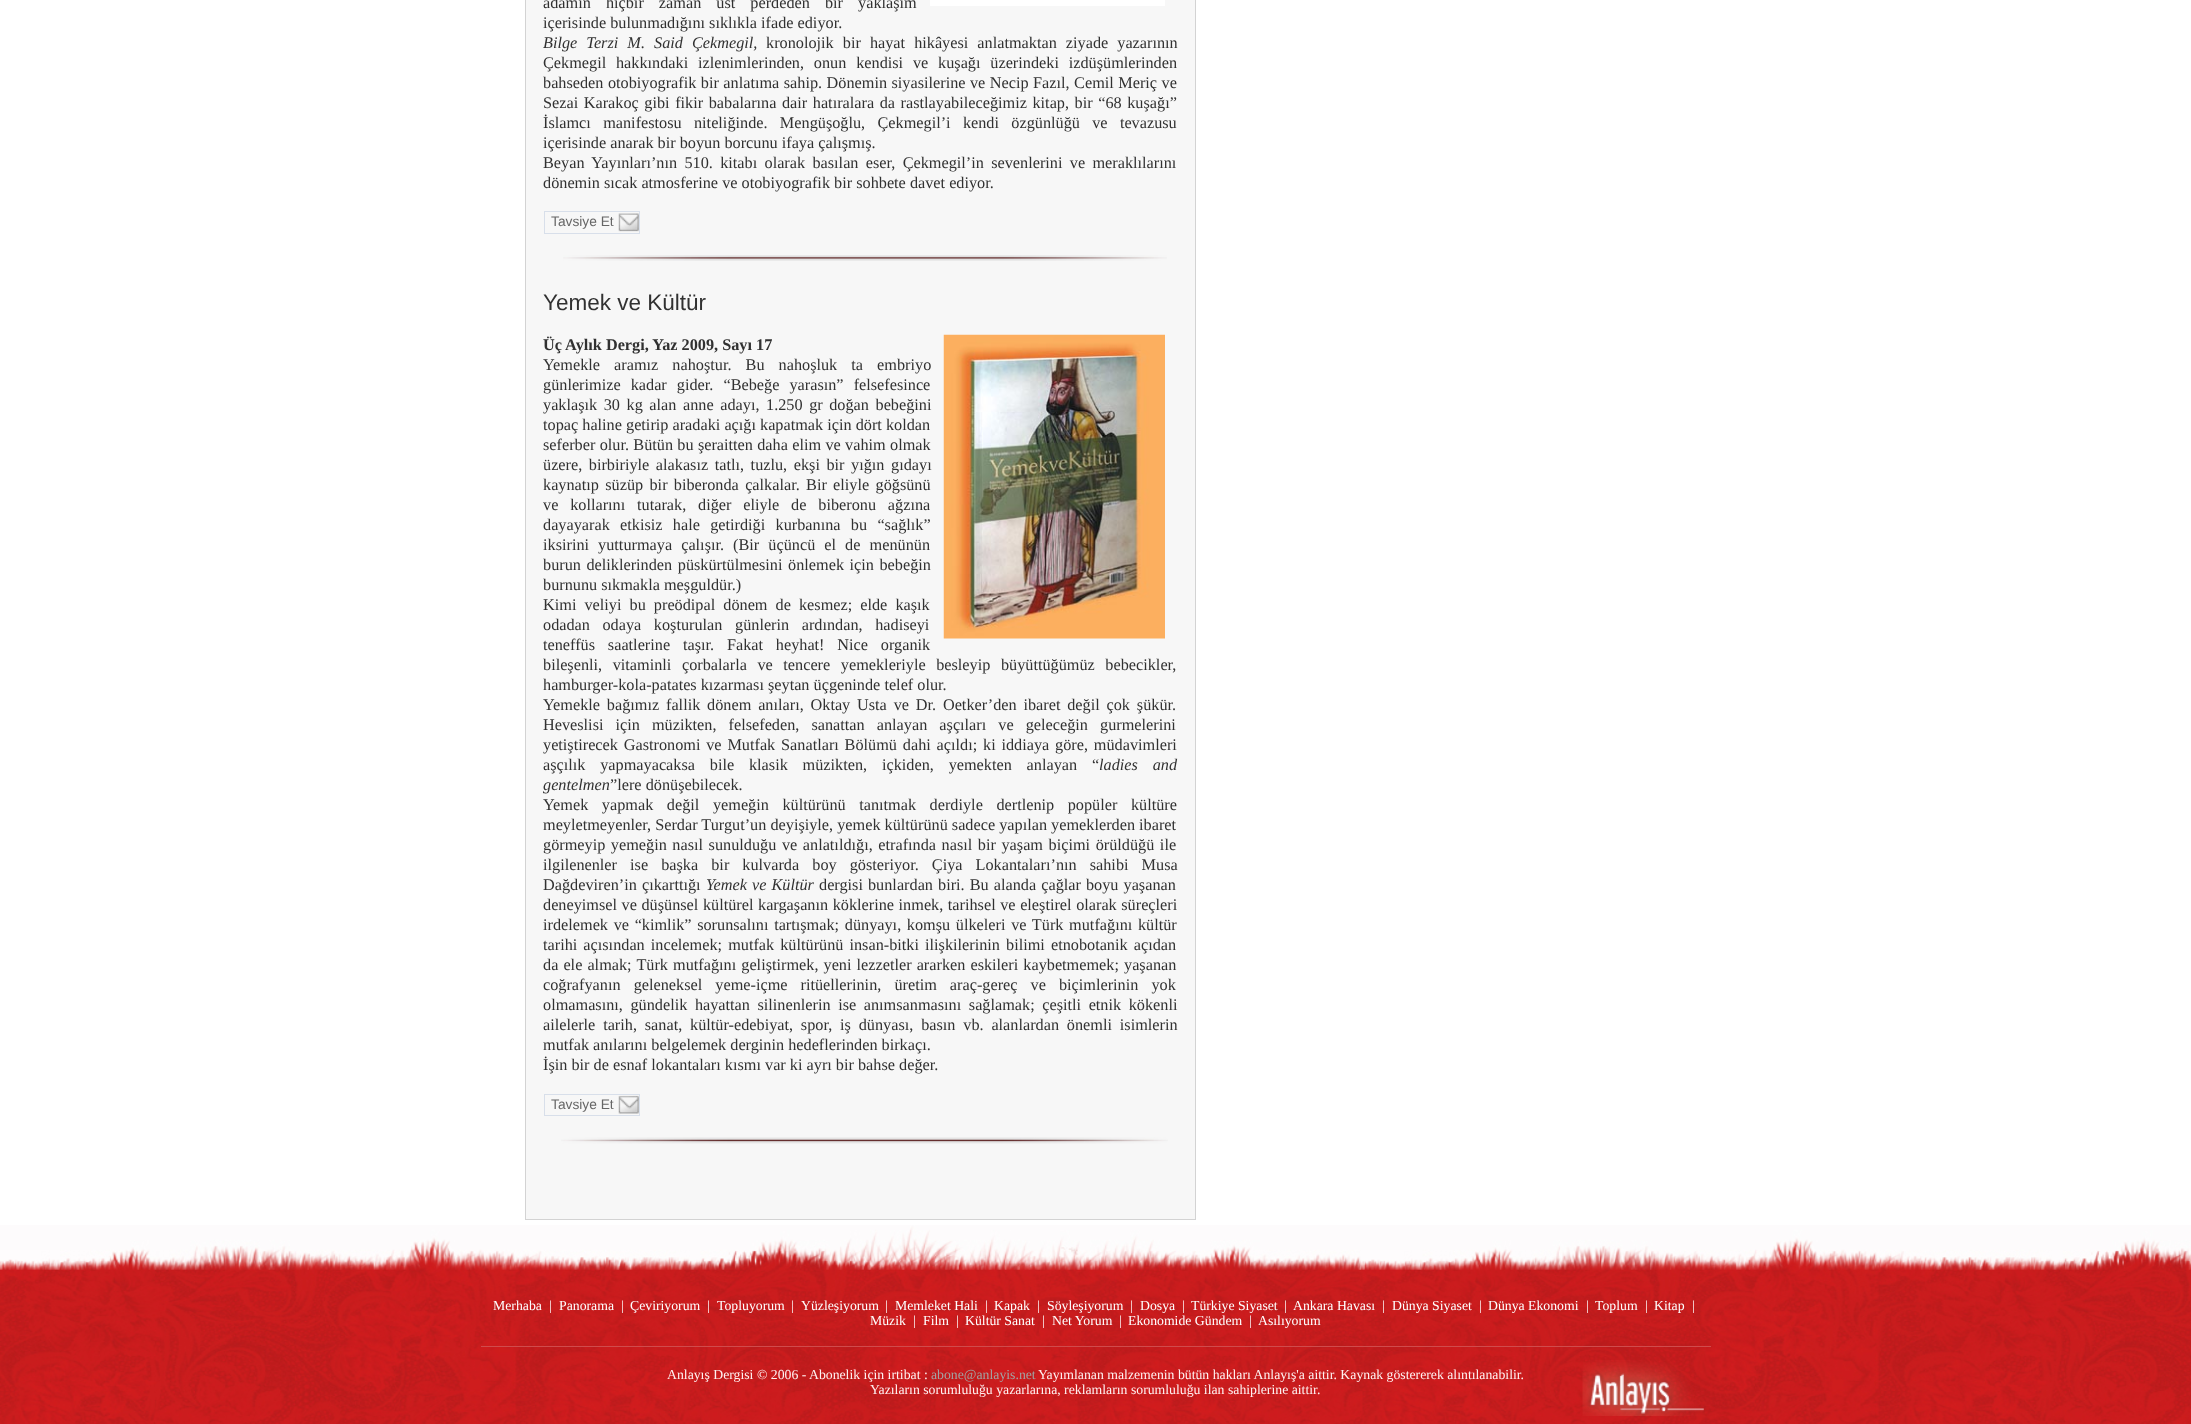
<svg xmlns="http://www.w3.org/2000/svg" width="2191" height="1424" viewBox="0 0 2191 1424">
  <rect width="100%" height="100%" fill="#ffffff"/>
  <rect x="525.5" y="-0.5" width="670" height="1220" fill="#f7f7f7" stroke="#d3d3d3"/>
  <text x="543" y="8" word-spacing="11" font-family="Liberation Serif" font-size="16.25" fill="#313131">adamın hiçbir zaman üst perdeden bir yaklaşım</text>
  <text x="543" y="28" font-family="Liberation Serif" font-size="16.25" fill="#313131">içerisinde bulunmadığını sıklıkla ifade ediyor.</text>
  <rect x="930" y="0" width="235" height="6" fill="#ffffff"/>
  <text x="543" y="48" word-spacing="5" font-family="Liberation Serif" font-size="16.25" font-style="italic" fill="#313131">Bilge Terzi M. Said Çekmegil,</text>
  <text x="766" y="48" word-spacing="5" font-family="Liberation Serif" font-size="16.25" fill="#313131">kronolojik bir hayat hikâyesi anlatmaktan ziyade yazarının</text>
  <text x="543" y="68" word-spacing="5.75" font-family="Liberation Serif" font-size="16.25" fill="#313131">Çekmegil hakkındaki izlenimlerinden, onun kendisi ve kuşağı üzerindeki izdüşümlerinden</text>
  <text x="543" y="88" word-spacing="0.4" font-family="Liberation Serif" font-size="16.25" fill="#313131">bahseden otobiyografik bir anlatıma sahip. Dönemin siyasilerine ve Necip Fazıl, Cemil Meriç ve</text>
  <text x="543" y="108" word-spacing="1.5" font-family="Liberation Serif" font-size="16.25" fill="#313131">Sezai Karakoç gibi fikir babalarına dair hatıralara da rastlayabileceğimiz kitap, bir “68 kuşağı”</text>
  <text x="543" y="128" word-spacing="8.25" font-family="Liberation Serif" font-size="16.25" fill="#313131">İslamcı manifestosu niteliğinde. Mengüşoğlu, Çekmegil’i kendi özgünlüğü ve tevazusu</text>
  <text x="543" y="148" font-family="Liberation Serif" font-size="16.25" fill="#313131">içerisinde anarak bir boyun borcunu ifaya çalışmış.</text>
  <text x="543" y="168" word-spacing="3.25" font-family="Liberation Serif" font-size="16.25" fill="#313131">Beyan Yayınları’nın 510. kitabı olarak basılan eser, Çekmegil’in sevenlerini ve meraklılarını</text>
  <text x="543" y="188" font-family="Liberation Serif" font-size="16.25" fill="#313131">dönemin sıcak atmosferine ve otobiyografik bir sohbete davet ediyor.</text>
  <image x="618" y="213" width="21" height="19" href="img1.png"/>
  <rect x="544.5" y="211.5" width="95" height="22" fill="none" stroke="#d8dfea"/>
  <text x="551" y="226" font-family="Liberation Sans" font-size="13.75" fill="#666666">Tavsiye Et</text>
  <image x="563" y="255" width="604" height="6" href="img2.png"/>
  <text x="543" y="310" font-family="Liberation Sans" font-size="22.5" fill="#313131">Yemek ve Kültür</text>
  <text x="543" y="350" font-family="Liberation Serif" font-size="16.25" font-weight="bold" fill="#313131">Üç Aylık Dergi, Yaz 2009, Sayı 17</text>
  <image x="943" y="334" width="222" height="305" href="img3.png"/>
  <text x="543" y="370" word-spacing="10" font-family="Liberation Serif" font-size="16.25" fill="#313131">Yemekle aramız nahoştur. Bu nahoşluk ta embriyo</text>
  <text x="543" y="390" word-spacing="6" font-family="Liberation Serif" font-size="16.25" fill="#313131">günlerimize kadar gider. “Bebeğe yarasın” felsefesince</text>
  <text x="543" y="410" word-spacing="2.5" font-family="Liberation Serif" font-size="16.25" fill="#313131">yaklaşık 30 kg alan anne adayı, 1.250 gr doğan bebeğini</text>
  <text x="543" y="430" font-family="Liberation Serif" font-size="16.25" fill="#313131">topaç haline getirip aradaki açığı kapatmak için dört koldan</text>
  <text x="543" y="450" word-spacing="0.25" font-family="Liberation Serif" font-size="16.25" fill="#313131">seferber olur. Bütün bu şeraitten daha elim ve vahim olmak</text>
  <text x="543" y="470" word-spacing="2.5" font-family="Liberation Serif" font-size="16.25" fill="#313131">üzere, birbiriyle alakasız tatlı, tuzlu, ekşi bir yığın gıdayı</text>
  <text x="543" y="490" word-spacing="2.25" font-family="Liberation Serif" font-size="16.25" fill="#313131">kaynatıp süzüp bir biberonda çalkalar. Bir eliyle göğsünü</text>
  <text x="543" y="510" word-spacing="7.75" font-family="Liberation Serif" font-size="16.25" fill="#313131">ve kollarını tutarak, diğer eliyle de biberonu ağzına</text>
  <text x="543" y="530" word-spacing="6.25" font-family="Liberation Serif" font-size="16.25" fill="#313131">dayayarak etkisiz hale getirdiği kurbanına bu “sağlık”</text>
  <text x="543" y="550" word-spacing="5" font-family="Liberation Serif" font-size="16.25" fill="#313131">iksirini yutturmaya çalışır. (Bir üçüncü el de menünün</text>
  <text x="543" y="570" word-spacing="1.5" font-family="Liberation Serif" font-size="16.25" fill="#313131">burun deliklerinden püskürtülmesini önlemek için bebeğin</text>
  <text x="543" y="590" font-family="Liberation Serif" font-size="16.25" fill="#313131">burnunu sıkmakla meşguldür.)</text>
  <text x="543" y="610" word-spacing="4" font-family="Liberation Serif" font-size="16.25" fill="#313131">Kimi veliyi bu preödipal dönem de kesmez; elde kaşık</text>
  <text x="543" y="630" word-spacing="8.5" font-family="Liberation Serif" font-size="16.25" fill="#313131">odadan odaya koşturulan günlerin ardından, hadiseyi</text>
  <text x="543" y="650" word-spacing="8.75" font-family="Liberation Serif" font-size="16.25" fill="#313131">teneffüs saatlerine taşır. Fakat heyhat! Nice organik</text>
  <text x="543" y="670" word-spacing="6.5" font-family="Liberation Serif" font-size="16.25" fill="#313131">bileşenli, vitaminli çorbalarla ve tencere yemekleriyle besleyip büyüttüğümüz bebecikler,</text>
  <text x="543" y="690" font-family="Liberation Serif" font-size="16.25" fill="#313131">hamburger-kola-patates kızarması şeytan üçgeninde telef olur.</text>
  <text x="543" y="710" word-spacing="2.75" font-family="Liberation Serif" font-size="16.25" fill="#313131">Yemekle bağımız fallik dönem anıları, Oktay Usta ve Dr. Oetker’den ibaret değil çok şükür.</text>
  <text x="543" y="730" word-spacing="8" font-family="Liberation Serif" font-size="16.25" fill="#313131">Heveslisi için müzikten, felsefeden, sanattan anlayan aşçıları ve geleceğin gurmelerini</text>
  <text x="543" y="750" word-spacing="1.75" font-family="Liberation Serif" font-size="16.25" fill="#313131">yetiştirecek Gastronomi ve Mutfak Sanatları Bölümü dahi açıldı; ki iddiaya göre, müdavimleri</text>
  <text x="543" y="770" word-spacing="10.75" font-family="Liberation Serif" font-size="16.25" fill="#313131">aşçılık yapmayacaksa bile klasik müzikten, içkiden, yemekten anlayan “</text>
  <text x="1099" y="770" word-spacing="10.75" font-family="Liberation Serif" font-size="16.25" font-style="italic" fill="#313131">ladies and</text>
  <text x="543" y="790" font-family="Liberation Serif" font-size="16.25" font-style="italic" fill="#313131">gentelmen</text>
  <text x="610" y="790" font-family="Liberation Serif" font-size="16.25" fill="#313131">”lere dönüşebilecek.</text>
  <text x="543" y="810" word-spacing="9.5" font-family="Liberation Serif" font-size="16.25" fill="#313131">Yemek yapmak değil yemeğin kültürünü tanıtmak derdiyle dertlenip popüler kültüre</text>
  <text x="543" y="830" font-family="Liberation Serif" font-size="16.25" fill="#313131">meyletmeyenler, Serdar Turgut’un deyişiyle, yemek kültürünü sadece yapılan yemeklerden ibaret</text>
  <text x="543" y="850" word-spacing="1.5" font-family="Liberation Serif" font-size="16.25" fill="#313131">görmeyip yemeğin nasıl sunulduğu ve anlatıldığı, etrafında nasıl bir yaşam biçimi örüldüğü ile</text>
  <text x="543" y="870" word-spacing="9" font-family="Liberation Serif" font-size="16.25" fill="#313131">ilgilenenler ise başka bir kulvarda boy gösteriyor. Çiya Lokantaları’nın sahibi Musa</text>
  <text x="543" y="890" word-spacing="1" font-family="Liberation Serif" font-size="16.25" fill="#313131">Dağdeviren’in çıkarttığı</text>
  <text x="706" y="890" word-spacing="1" font-family="Liberation Serif" font-size="16.25" font-style="italic" fill="#313131">Yemek ve Kültür</text>
  <text x="819" y="890" word-spacing="1" font-family="Liberation Serif" font-size="16.25" fill="#313131">dergisi bunlardan biri. Bu alanda çağlar boyu yaşanan</text>
  <text x="543" y="910" word-spacing="0.5" font-family="Liberation Serif" font-size="16.25" fill="#313131">deneyimsel ve düşünsel kültürel kargaşanın köklerine inmek, tarihsel ve eleştirel olarak süreçleri</text>
  <text x="543" y="930" word-spacing="1.6" font-family="Liberation Serif" font-size="16.25" fill="#313131">irdelemek ve “kimlik” sorunsalını tartışmak; dünyayı, komşu ülkeleri ve Türk mutfağını kültür</text>
  <text x="543" y="950" word-spacing="2" font-family="Liberation Serif" font-size="16.25" fill="#313131">tarihi açısından incelemek; mutfak kültürünü insan-bitki ilişkilerinin bilimi etnobotanik açıdan</text>
  <text x="543" y="970" word-spacing="1" font-family="Liberation Serif" font-size="16.25" fill="#313131">da ele almak; Türk mutfağını geliştirmek, yeni lezzetler ararken eskileri kaybetmemek; yaşanan</text>
  <text x="543" y="990" word-spacing="9" font-family="Liberation Serif" font-size="16.25" fill="#313131">coğrafyanın geleneksel yeme-içme ritüellerinin, üretim araç-gereç ve biçimlerinin yok</text>
  <text x="543" y="1010" word-spacing="3.5" font-family="Liberation Serif" font-size="16.25" fill="#313131">olmamasını, gündelik hayattan silinenlerin ise anımsanmasını sağlamak; çeşitli etnik kökenli</text>
  <text x="543" y="1030" word-spacing="3.75" font-family="Liberation Serif" font-size="16.25" fill="#313131">ailelerle tarih, sanat, kültür-edebiyat, spor, iş dünyası, basın vb. alanlardan önemli isimlerin</text>
  <text x="543" y="1050" font-family="Liberation Serif" font-size="16.25" fill="#313131">mutfak anılarını belgelemek derginin hedeflerinden birkaçı.</text>
  <text x="543" y="1070" font-family="Liberation Serif" font-size="16.25" fill="#313131">İşin bir de esnaf lokantaları kısmı var ki ayrı bir bahse değer.</text>
  <image x="618" y="1095" width="21" height="19" href="img4.png"/>
  <rect x="544.5" y="1094.5" width="95" height="21" fill="none" stroke="#d8dfea"/>
  <text x="551" y="1109" font-family="Liberation Sans" font-size="13.75" fill="#666666">Tavsiye Et</text>
  <image x="561" y="1137" width="607" height="7" href="img5.png"/>
  <image x="0" y="1225" width="2191" height="199" href="img6.png"/>
  <rect x="481" y="1346" width="1230" height="1" fill="#d04b4c"/>
  <text x="493" y="1310" font-family="Liberation Serif" font-size="13.75" fill="#ffffff">Merhaba</text>
  <text x="549" y="1310" font-family="Liberation Serif" font-size="13.75" fill="#ffffff">|</text>
  <text x="559" y="1310" font-family="Liberation Serif" font-size="13.75" fill="#ffffff">Panorama</text>
  <text x="621" y="1310" font-family="Liberation Serif" font-size="13.75" fill="#ffffff">|</text>
  <text x="630" y="1310" font-family="Liberation Serif" font-size="13.75" fill="#ffffff">Çeviriyorum</text>
  <text x="707" y="1310" font-family="Liberation Serif" font-size="13.75" fill="#ffffff">|</text>
  <text x="717" y="1310" font-family="Liberation Serif" font-size="13.75" fill="#ffffff">Topluyorum</text>
  <text x="791" y="1310" font-family="Liberation Serif" font-size="13.75" fill="#ffffff">|</text>
  <text x="801" y="1310" font-family="Liberation Serif" font-size="13.75" fill="#ffffff">Yüzleşiyorum</text>
  <text x="885" y="1310" font-family="Liberation Serif" font-size="13.75" fill="#ffffff">|</text>
  <text x="895" y="1310" font-family="Liberation Serif" font-size="13.75" fill="#ffffff">Memleket Hali</text>
  <text x="985" y="1310" font-family="Liberation Serif" font-size="13.75" fill="#ffffff">|</text>
  <text x="994" y="1310" font-family="Liberation Serif" font-size="13.75" fill="#ffffff">Kapak</text>
  <text x="1037" y="1310" font-family="Liberation Serif" font-size="13.75" fill="#ffffff">|</text>
  <text x="1047" y="1310" font-family="Liberation Serif" font-size="13.75" fill="#ffffff">Söyleşiyorum</text>
  <text x="1130" y="1310" font-family="Liberation Serif" font-size="13.75" fill="#ffffff">|</text>
  <text x="1140" y="1310" font-family="Liberation Serif" font-size="13.75" fill="#ffffff">Dosya</text>
  <text x="1182" y="1310" font-family="Liberation Serif" font-size="13.75" fill="#ffffff">|</text>
  <text x="1191" y="1310" font-family="Liberation Serif" font-size="13.75" fill="#ffffff">Türkiye Siyaset</text>
  <text x="1284" y="1310" font-family="Liberation Serif" font-size="13.75" fill="#ffffff">|</text>
  <text x="1293" y="1310" font-family="Liberation Serif" font-size="13.75" fill="#ffffff">Ankara Havası</text>
  <text x="1382" y="1310" font-family="Liberation Serif" font-size="13.75" fill="#ffffff">|</text>
  <text x="1392" y="1310" font-family="Liberation Serif" font-size="13.75" fill="#ffffff">Dünya Siyaset</text>
  <text x="1479" y="1310" font-family="Liberation Serif" font-size="13.75" fill="#ffffff">|</text>
  <text x="1488" y="1310" font-family="Liberation Serif" font-size="13.75" fill="#ffffff">Dünya Ekonomi</text>
  <text x="1586" y="1310" font-family="Liberation Serif" font-size="13.75" fill="#ffffff">|</text>
  <text x="1595" y="1310" font-family="Liberation Serif" font-size="13.75" fill="#ffffff">Toplum</text>
  <text x="1645" y="1310" font-family="Liberation Serif" font-size="13.75" fill="#ffffff">|</text>
  <text x="1654" y="1310" font-family="Liberation Serif" font-size="13.75" fill="#ffffff">Kitap</text>
  <text x="1692" y="1310" font-family="Liberation Serif" font-size="13.75" fill="#ffffff">|</text>
  <text x="870" y="1325" font-family="Liberation Serif" font-size="13.75" fill="#ffffff">Müzik</text>
  <text x="913" y="1325" font-family="Liberation Serif" font-size="13.75" fill="#ffffff">|</text>
  <text x="923" y="1325" font-family="Liberation Serif" font-size="13.75" fill="#ffffff">Film</text>
  <text x="956" y="1325" font-family="Liberation Serif" font-size="13.75" fill="#ffffff">|</text>
  <text x="965" y="1325" font-family="Liberation Serif" font-size="13.75" fill="#ffffff">Kültür Sanat</text>
  <text x="1042" y="1325" font-family="Liberation Serif" font-size="13.75" fill="#ffffff">|</text>
  <text x="1052" y="1325" font-family="Liberation Serif" font-size="13.75" fill="#ffffff">Net Yorum</text>
  <text x="1119" y="1325" font-family="Liberation Serif" font-size="13.75" fill="#ffffff">|</text>
  <text x="1128" y="1325" font-family="Liberation Serif" font-size="13.75" fill="#ffffff">Ekonomide Gündem</text>
  <text x="1249" y="1325" font-family="Liberation Serif" font-size="13.75" fill="#ffffff">|</text>
  <text x="1258" y="1325" font-family="Liberation Serif" font-size="13.75" fill="#ffffff">Asılıyorum</text>
  <image x="1582" y="1360" width="123" height="56" href="img7.png"/>
  <text x="667" y="1379" font-family="Liberation Serif" font-size="13.75" fill="#fff2f2">Anlayış Dergisi © 2006 - Abonelik için irtibat :</text>
  <text x="931" y="1379" font-family="Liberation Serif" font-size="13.75" fill="#a3a3a3">abone@anlayis.net</text>
  <text x="1038" y="1379" font-family="Liberation Serif" font-size="13.75" fill="#fff2f2">Yayımlanan malzemenin bütün hakları Anlayış'a aittir. Kaynak göstererek alıntılanabilir.</text>
  <text x="870" y="1394" font-family="Liberation Serif" font-size="13.75" fill="#fff2f2">Yazıların sorumluluğu yazarlarına, reklamların sorumluluğu ilan sahiplerine aittir.</text>
</svg>
